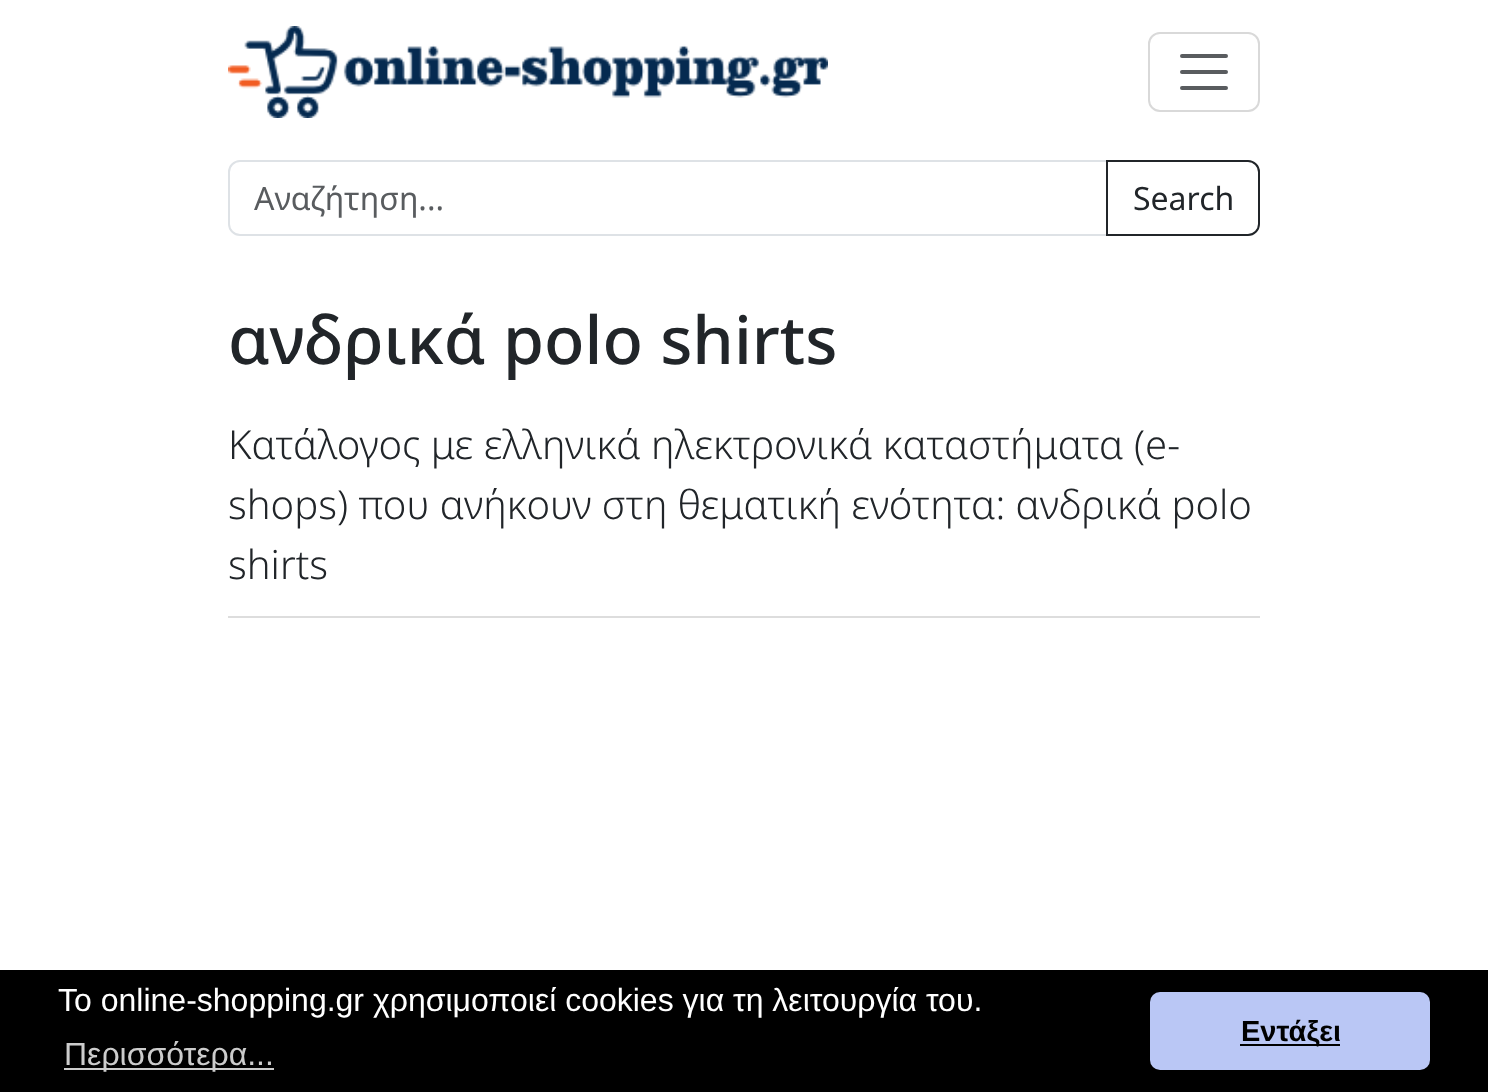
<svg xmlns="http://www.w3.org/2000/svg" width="1488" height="1092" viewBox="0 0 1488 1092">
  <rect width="100%" height="100%" fill="#ffffff"/>
  <image x="228" y="26" width="600" height="92" href="img1.png"/>
  <rect x="1149" y="33" width="110" height="78" rx="11" fill="none" stroke="#d9d9d9" stroke-width="2"/>
  <path d="M1182 56H1226M1182 72H1226M1182 88H1226" fill="none" stroke="#595c5f" stroke-width="4" stroke-linecap="round"/>
  <path d="M240 161H1107V235H240C234 235 229 230 229 224V172C229 166 234 161 240 161Z" fill="none" stroke="#dee2e6" stroke-width="2"/>
  <text x="254" y="210" font-family="Noto Sans" font-size="32" fill="#595c5f">Αναζήτηση...</text>
  <path d="M1107 161H1248C1254 161 1259 166 1259 172V224C1259 230 1254 235 1248 235H1107Z" fill="none" stroke="#212529" stroke-width="2"/>
  <text x="1133" y="210" font-family="Noto Sans" font-size="32" fill="#212529">Search</text>
  <text x="228" y="364" font-family="Noto Sans" font-size="66.25" font-weight="500" fill="#212529">ανδρικά polo shirts</text>
  <rect x="228" y="616" width="1032" height="2" fill="#dddddd"/>
  <text x="228" y="459" font-family="Noto Sans" font-size="40" font-weight="300" fill="#212529">Κατάλογος με ελληνικά ηλεκτρονικά καταστήματα (e-</text>
  <text x="228" y="519" font-family="Noto Sans" font-size="40" font-weight="300" fill="#212529">shops) που ανήκουν στη θεματική ενότητα: ανδρικά polo</text>
  <text x="228" y="579" font-family="Noto Sans" font-size="40" font-weight="300" fill="#212529">shirts</text>
  <rect x="0" y="970" width="1488" height="122" fill="#000000"/>
  <text x="58" y="1011" font-family="Liberation Sans" font-size="32" fill="#ffffff">Το online-shopping.gr χρησιμοποιεί cookies για τη λειτουργία του.</text>
  <rect x="64" y="1068" width="210" height="2" fill="#cccccc"/>
  <text x="64" y="1065" font-family="Liberation Sans" font-size="32" fill="#cccccc">Περισσότερα...</text>
  <rect x="1150" y="992" width="280" height="78" rx="10" fill="#bac7f5"/>
  <rect x="1240" y="1044" width="100" height="2" fill="#000000"/>
  <text x="1241" y="1041" font-family="Liberation Sans" font-size="29" font-weight="bold" fill="#000000">Εντάξει</text>
</svg>
